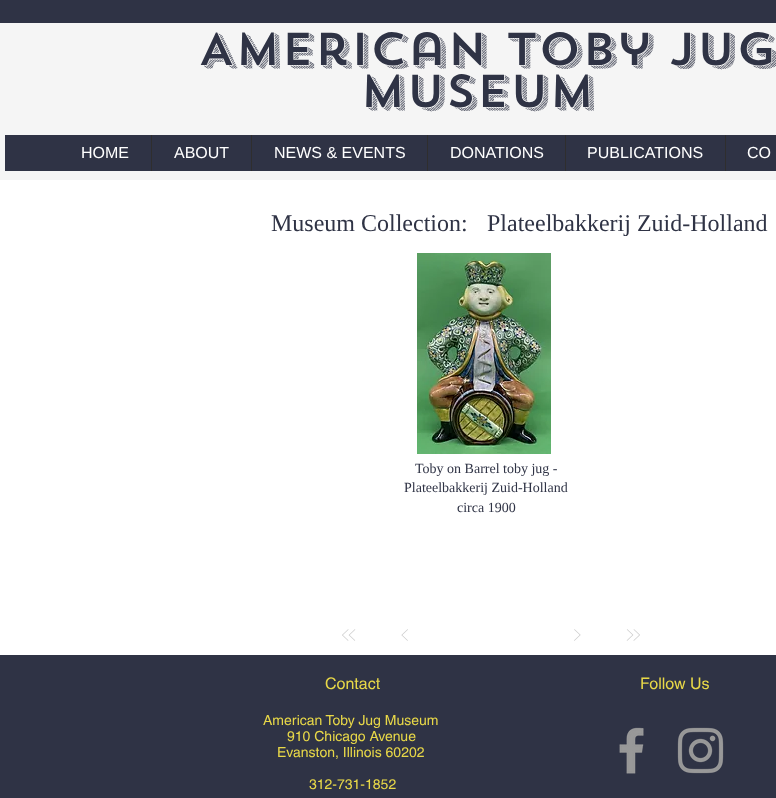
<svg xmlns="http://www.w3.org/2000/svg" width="776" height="798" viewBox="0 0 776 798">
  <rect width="100%" height="100%" fill="#ffffff"/>
  <rect x="0" y="23" width="776" height="157" fill="#f5f5f5"/>
  <rect x="0" y="0" width="776" height="23" fill="#2f3345"/>
  <text x="198" y="65" font-family="'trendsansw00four'" font-size="46" font-weight="500" fill="#2f3345">American Toby Jug</text>
  <text x="360" y="107" font-family="'trendsansw00four'" font-size="46" font-weight="500" fill="#2f3345">Museum</text>
  <rect x="5" y="135" width="771" height="36" fill="#2f3345"/>
  <text x="81" y="158" font-family="Liberation Sans" font-size="16" fill="#ffffff">HOME</text>
  <rect x="151" y="135" width="1" height="36" fill="#2f2e2e"/>
  <text x="174" y="158" font-family="Liberation Sans" font-size="16" fill="#ffffff">ABOUT</text>
  <rect x="251" y="135" width="1" height="36" fill="#2f2e2e"/>
  <text x="274" y="158" font-family="Liberation Sans" font-size="16" fill="#ffffff">NEWS &amp; EVENTS</text>
  <rect x="427" y="135" width="1" height="36" fill="#2f2e2e"/>
  <text x="450" y="158" font-family="Liberation Sans" font-size="16" fill="#ffffff">DONATIONS</text>
  <rect x="565" y="135" width="1" height="36" fill="#2f2e2e"/>
  <text x="587" y="158" font-family="Liberation Sans" font-size="16" fill="#ffffff">PUBLICATIONS</text>
  <rect x="725" y="135" width="1" height="36" fill="#2f2e2e"/>
  <text x="747" y="158" font-family="Liberation Sans" font-size="16" fill="#ffffff">CO</text>
  <text x="271" y="231" font-family="Liberation Serif" font-size="24" fill="#2f3345">Museum Collection:</text>
  <text x="487" y="231" font-family="Liberation Serif" font-size="24" fill="#2f3345">Plateelbakkerij Zuid-Holland</text>
  <image x="417" y="253" width="134" height="201" href="img1.png"/>
  <text x="415" y="473" font-family="Liberation Serif" font-size="14" fill="#2f3345">Toby on Barrel toby jug -</text>
  <text x="404" y="492" font-family="Liberation Serif" font-size="14" fill="#2f3345">Plateelbakkerij Zuid-Holland</text>
  <text x="457" y="512" font-family="Liberation Serif" font-size="14" fill="#2f3345">circa 1900</text>
  <image x="342" y="629" width="14" height="12" href="img2.png"/>
  <image x="401" y="629" width="7" height="12" href="img3.png"/>
  <image x="574" y="629" width="7" height="12" href="img4.png"/>
  <image x="626" y="629" width="14" height="12" href="img5.png"/>
  <rect x="0" y="655" width="776" height="143" fill="#2f3345"/>
  <text x="325" y="689" font-family="helvetica" font-size="16" fill="#e8d848">Contact</text>
  <text x="640" y="689" font-family="helvetica" font-size="16" fill="#e8d848">Follow Us</text>
  <text x="263" y="725" font-family="helvetica" font-size="14" fill="#e8d848">American Toby Jug Museum</text>
  <text x="287" y="741" font-family="helvetica" font-size="14" fill="#e8d848">910 Chicago Avenue</text>
  <text x="277" y="757" font-family="helvetica" font-size="14" fill="#e8d848">Evanston, Illinois 60202</text>
  <text x="309" y="789" font-family="helvetica" font-size="14" fill="#e8d848">312-731-1852</text>
  <image x="619" y="727" width="25" height="47" href="img6.png"/>
  <image x="677" y="727" width="47" height="47" href="img7.png"/>
</svg>
